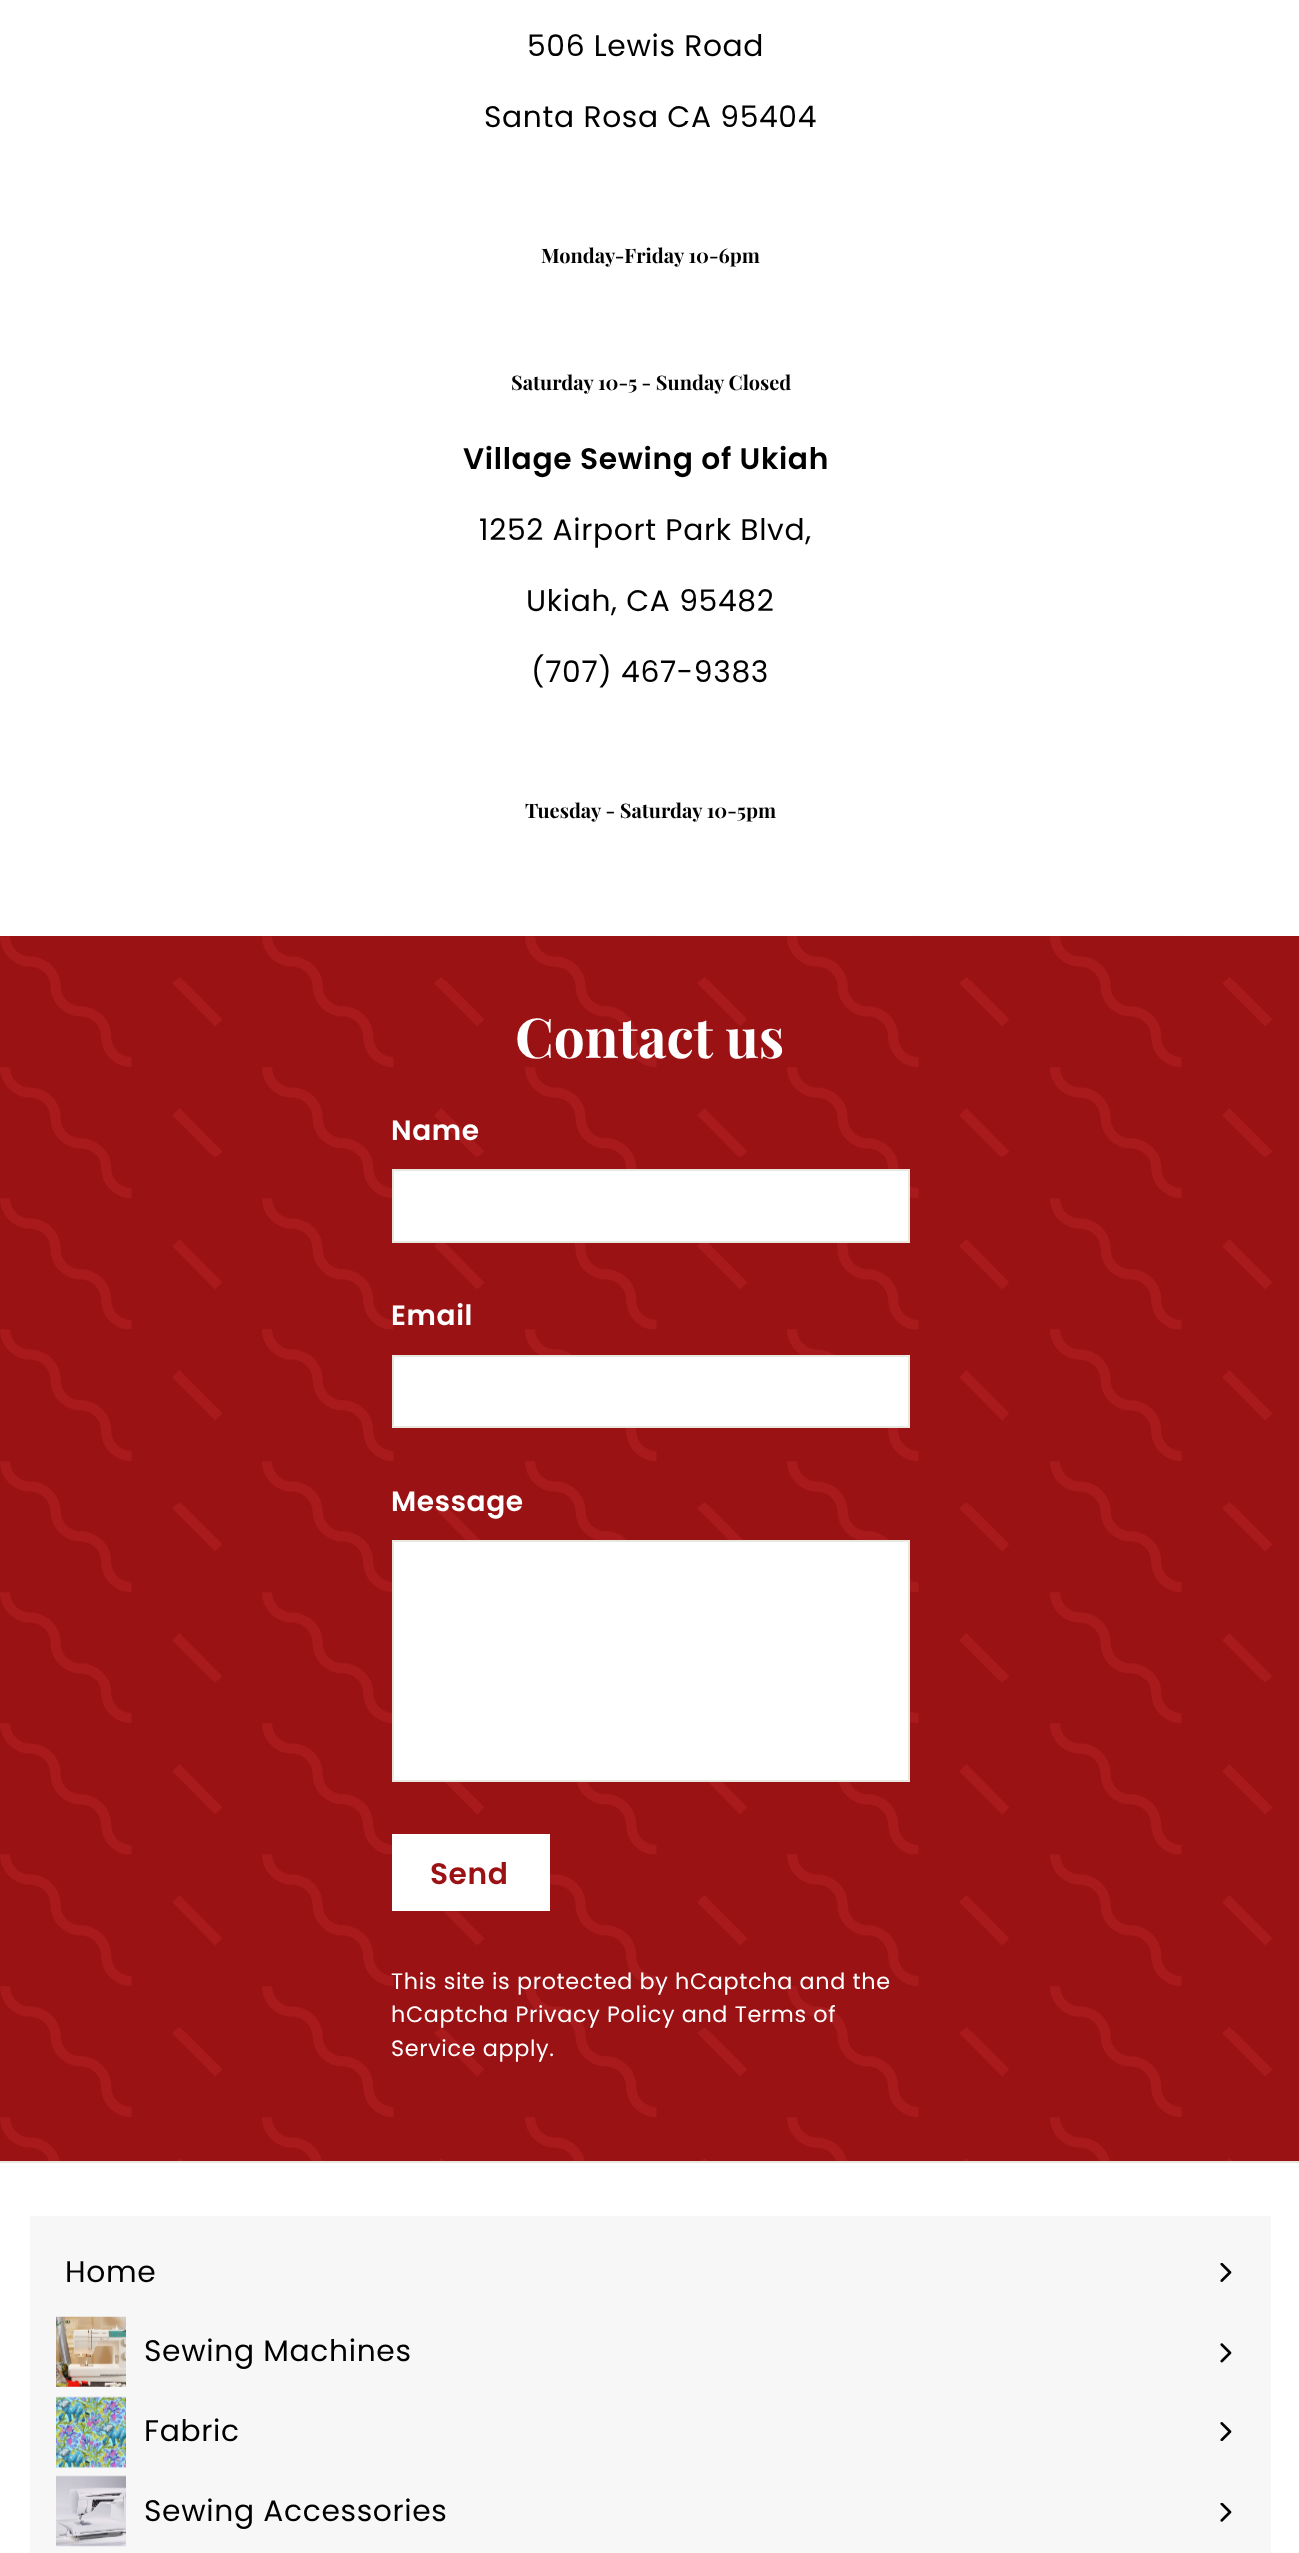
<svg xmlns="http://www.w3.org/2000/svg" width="1299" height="2553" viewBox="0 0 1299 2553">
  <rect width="100%" height="100%" fill="#ffffff"/>
  <rect x="30" y="2216" width="1241" height="337" fill="#f7f7f7"/>
  <text x="527" y="56" font-family="Poppins" font-size="29.75" letter-spacing="0.65" fill="#000000">506 Lewis Road</text>
  <text x="484" y="127" font-family="Poppins" font-size="29.75" letter-spacing="0.65" fill="#000000">Santa Rosa CA 95404</text>
  <text x="541" y="263" font-family="Playfair Display" font-size="20" font-weight="bold" fill="#000000">Monday-Friday 10-6pm</text>
  <text x="511" y="390" font-family="Playfair Display" font-size="20" font-weight="bold" fill="#000000">Saturday 10-5 - Sunday Closed</text>
  <text x="463" y="469" font-family="Poppins" font-size="29.75" font-weight="600" letter-spacing="0.65" fill="#000000">Village Sewing of Ukiah</text>
  <text x="479" y="540" font-family="Poppins" font-size="29.75" letter-spacing="0.65" fill="#000000">1252 Airport Park Blvd,</text>
  <text x="526" y="611" font-family="Poppins" font-size="29.75" letter-spacing="0.65" fill="#000000">Ukiah, CA 95482</text>
  <text x="531" y="682" font-family="Poppins" font-size="29.75" letter-spacing="0.65" fill="#000000">(707) 467-9383</text>
  <text x="525" y="818" font-family="Playfair Display" font-size="20" font-weight="bold" fill="#000000">Tuesday - Saturday 10-5pm</text>
  <rect x="0" y="936" width="1299" height="1225" fill="#9b1214"/>
  <image x="0" y="935" width="1272" height="1226" href="img1.png"/>
  <text x="515" y="1058" font-family="Playfair Display" font-size="55" font-weight="bold" fill="#ffffff">Contact us</text>
  <text x="391" y="1140" font-family="Poppins" font-size="28" font-weight="600" letter-spacing="0.65" fill="#ffffff">Name</text>
  <rect x="393" y="1170" width="516" height="72" fill="#ffffff" stroke="#e8e8e1" stroke-width="2"/>
  <text x="391" y="1325" font-family="Poppins" font-size="28" font-weight="600" letter-spacing="0.65" fill="#ffffff">Email</text>
  <rect x="393" y="1356" width="516" height="71" fill="#ffffff" stroke="#e8e8e1" stroke-width="2"/>
  <text x="391" y="1511" font-family="Poppins" font-size="28" font-weight="600" letter-spacing="0.65" fill="#ffffff">Message</text>
  <rect x="393" y="1541" width="516" height="240" fill="#ffffff" stroke="#e8e8e1" stroke-width="2"/>
  <rect x="392" y="1834" width="158" height="77" fill="#ffffff"/>
  <text x="430" y="1884" font-family="Poppins" font-size="29.75" font-weight="600" letter-spacing="0.5" fill="#9b1214">Send</text>
  <text x="391" y="1989" font-family="Poppins" font-size="22.3" letter-spacing="0.65" fill="#ffffff">This site is protected by hCaptcha and the</text>
  <text x="391" y="2022" font-family="Poppins" font-size="22.3" letter-spacing="0.65" fill="#ffffff">hCaptcha Privacy Policy and Terms of</text>
  <text x="391" y="2056" font-family="Poppins" font-size="22.3" letter-spacing="0.65" fill="#ffffff">Service apply.</text>
  <rect x="0" y="2161" width="1299" height="2" fill="#e8e8e1"/>
  <text x="65" y="2282" font-family="Poppins" font-size="29.75" letter-spacing="0.65" fill="#000000">Home</text>
  <image x="1220" y="2263" width="12" height="19" href="img2.png"/>
  <image x="56" y="2316" width="70" height="71" href="img3.png"/>
  <text x="144" y="2361" font-family="Poppins" font-size="29.75" letter-spacing="0.65" fill="#000000">Sewing Machines</text>
  <image x="1220" y="2343" width="12" height="20" href="img4.png"/>
  <image x="56" y="2396" width="70" height="72" href="img5.png"/>
  <text x="144" y="2441" font-family="Poppins" font-size="29.75" letter-spacing="0.65" fill="#000000">Fabric</text>
  <image x="1220" y="2422" width="12" height="19" href="img6.png"/>
  <image x="56" y="2475" width="70" height="72" href="img7.png"/>
  <text x="144" y="2521" font-family="Poppins" font-size="29.75" letter-spacing="0.65" fill="#000000">Sewing Accessories</text>
  <image x="1220" y="2503" width="12" height="19" href="img8.png"/>
</svg>
